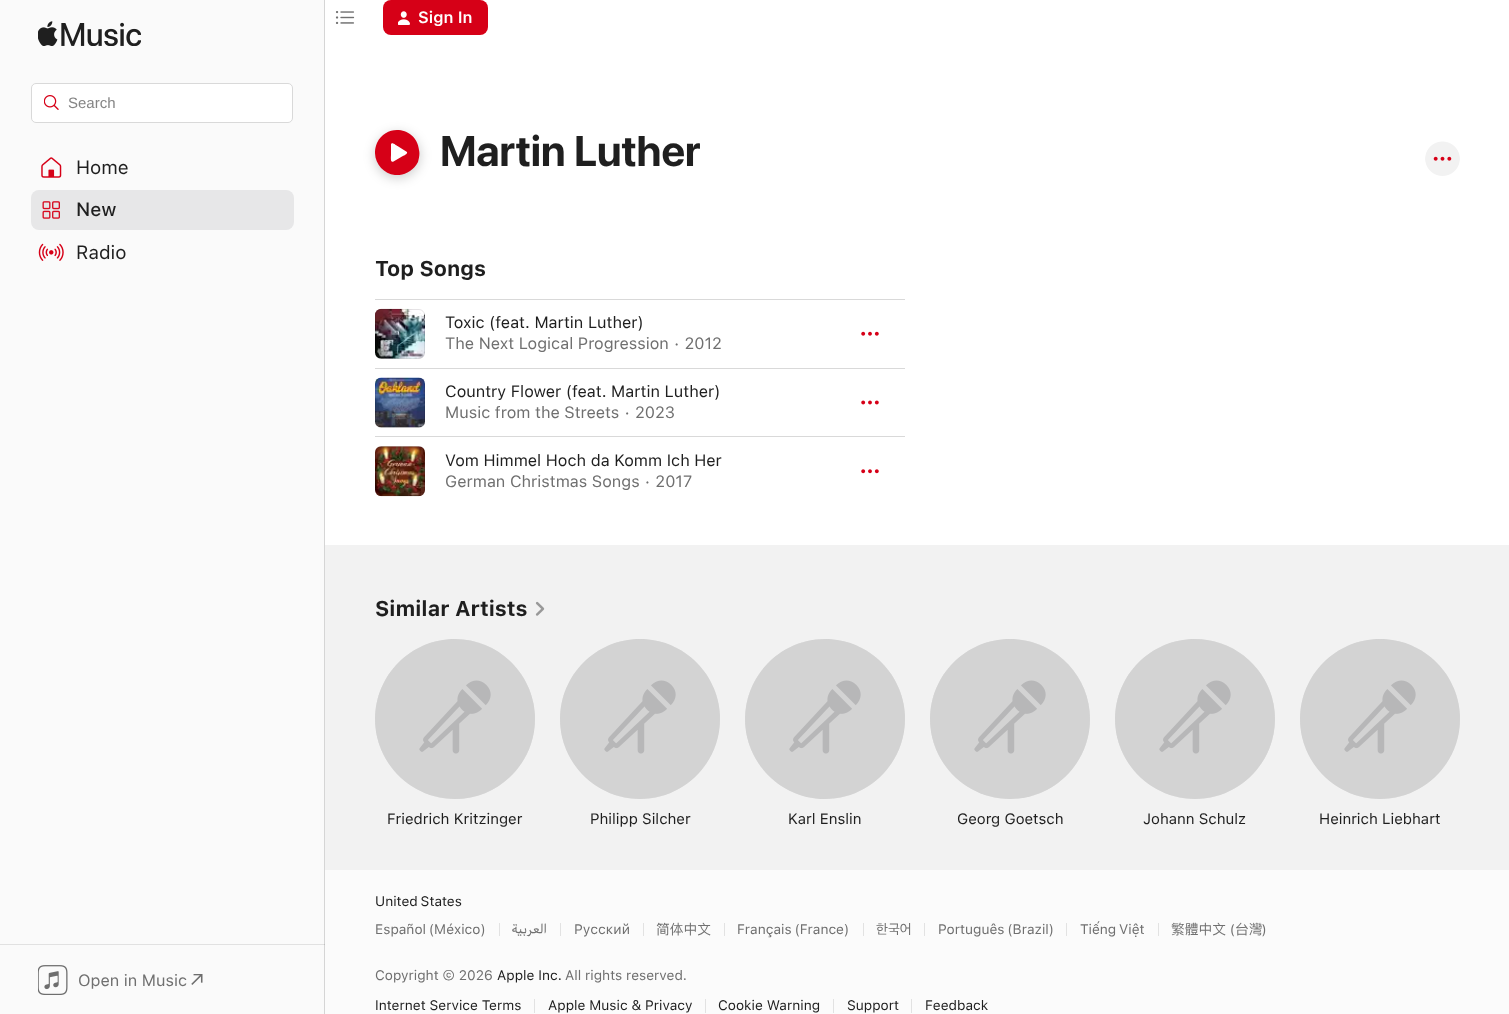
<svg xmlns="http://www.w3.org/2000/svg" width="1509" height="1014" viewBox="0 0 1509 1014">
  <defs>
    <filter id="blur1" x="-50%" y="-200%" width="200%" height="500%"><feGaussianBlur stdDeviation="6"/></filter>
    <clipPath id="clip1"><rect x="375" y="130" width="45" height="45"/></clipPath>
  </defs>
  <rect width="100%" height="100%" fill="#ffffff"/>
  <image x="335" y="11" width="20" height="13" href="img1.png"/>
  <rect x="383" y="0" width="105" height="35" rx="8" fill="#d60017"/>
  <image x="398" y="11" width="12" height="14" href="img2.png"/>
  <text x="418" y="23" font-family="SF" font-size="16.25" font-weight="600" fill="#ffffff">Sign In</text>
  <rect x="0" y="0" width="324" height="1014" fill="#fafafa"/>
  <rect x="0" y="944" width="325" height="1" fill="#e1e1e1"/>
  <rect x="324" y="0" width="1" height="1014" fill="#d5d5d5"/>
  <rect x="324" y="944" width="1" height="1" fill="#c0c0c0"/>
  <image x="38" y="21" width="103" height="25" href="img3.png"/>
  <rect x="31.5" y="83.5" width="261" height="39" rx="4.5" fill="#ffffff" stroke="#d9d9d9"/>
  <image x="44" y="95" width="15" height="15" href="img4.png"/>
  <text x="68" y="108" font-family="Liberation Sans" font-size="15" fill="#858585">Search</text>
  <image x="41" y="157" width="21" height="21" href="img5.png"/>
  <text x="76" y="174" font-family="SF" font-size="19" fill="#1f1f1f">Home</text>
  <rect x="31" y="190" width="263" height="40" rx="8" fill="#e7e7e8"/>
  <image x="42" y="201" width="18" height="18" href="img6.png"/>
  <text x="76" y="216" font-family="SF" font-size="19" font-weight="500" fill="#1f1f1f">New</text>
  <image x="38" y="243" width="26" height="18" href="img7.png"/>
  <text x="76" y="259" font-family="SF" font-size="19" fill="#1f1f1f">Radio</text>
  <image x="38" y="965" width="30" height="30" href="img8.png"/>
  <text x="78" y="986" font-family="SF" font-size="16.25" fill="#707070">Open in Music</text>
  <image x="191" y="974" width="12" height="11" href="img9.png"/>
  <rect x="375" y="133" width="45" height="45" rx="22.5" fill="#000000" fill-opacity="0.2" filter="url(#blur1)"/>
  <g clip-path="url(#clip1)">
    <path d="M377 143C387 122 417 128 419 150C420 154 419 158 418 162C416 166 413 169 410 171C391 184 368 164 377 143Z" fill="#d60017"/>
  </g>
  <path d="M393.5 161.5C390 163.5 391 156 391 155V144C392 141.5 397 146 397.5 146L407 152C408 154 403 156 402 156.5Z" fill="#ffffff"/>
  <text x="440" y="166" font-family="'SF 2'" font-size="42.5" font-weight="bold" fill="#1f1f1f">Martin Luther</text>
  <image x="1425" y="141" width="35" height="35" href="img10.png"/>
  <text x="375" y="276" font-family="SF" font-size="21.25" font-weight="bold" fill="#1f1f1f">Top Songs</text>
  <rect x="375" y="299" width="530" height="1" fill="#d9d9d9"/>
  <image x="375" y="308" width="50" height="51" href="img11.png"/>
  <rect x="375.5" y="309.5" width="49" height="49" rx="5.5" fill="none" stroke="#000000" stroke-opacity="0.1"/>
  <text x="445" y="328" font-family="SF" font-size="16.25" fill="#1f1f1f">Toxic (feat. Martin Luther)</text>
  <text x="445" y="349" font-family="SF" font-size="16.25" fill="#707070">The Next Logical Progression · 2012</text>
  <image x="861" y="331" width="18" height="5" href="img12.png"/>
  <rect x="375" y="368" width="530" height="1" fill="#d9d9d9"/>
  <image x="375" y="377" width="50" height="51" href="img13.png"/>
  <rect x="375.5" y="378.5" width="49" height="49" rx="5.5" fill="none" stroke="#000000" stroke-opacity="0.1"/>
  <text x="445" y="397" font-family="SF" font-size="16.25" fill="#1f1f1f">Country Flower (feat. Martin Luther)</text>
  <text x="445" y="418" font-family="SF" font-size="16.25" fill="#707070">Music from the Streets · 2023</text>
  <image x="861" y="400" width="18" height="5" href="img14.png"/>
  <rect x="375" y="436" width="530" height="1" fill="#d9d9d9"/>
  <image x="375" y="446" width="50" height="51" href="img15.png"/>
  <rect x="375.5" y="446.5" width="49" height="49" rx="5.5" fill="none" stroke="#000000" stroke-opacity="0.1"/>
  <text x="445" y="466" font-family="SF" font-size="16.25" fill="#1f1f1f">Vom Himmel Hoch da Komm Ich Her</text>
  <text x="445" y="487" font-family="SF" font-size="16.25" fill="#707070">German Christmas Songs · 2017</text>
  <image x="861" y="469" width="18" height="5" href="img16.png"/>
  <rect x="325" y="545" width="1184" height="325" fill="#f2f2f2"/>
  <text x="375" y="616" font-family="SF" font-size="21.25" font-weight="bold" fill="#1f1f1f">Similar Artists</text>
  <image x="535" y="601" width="10" height="15" href="img17.png"/>
  <circle cx="455" cy="719" r="79.5" fill="none" stroke="#808080" stroke-opacity="0.1"/>
  <circle cx="455" cy="719" r="80" fill="#ebebeb"/>
  <image x="419" y="680" width="72" height="74" href="img18.png"/>
  <path d="M455 639C499 639 535 675 535 719C535 763 499 799 455 799C411 799 375 763 375 719C375 675 411 639 455 639Z" fill="#000000" fill-opacity="0.1"/>
  <text x="387" y="824" font-family="SF" font-size="15" fill="#1f1f1f">Friedrich Kritzinger</text>
  <circle cx="640" cy="719" r="79.5" fill="none" stroke="#808080" stroke-opacity="0.1"/>
  <circle cx="640" cy="719" r="80" fill="#ebebeb"/>
  <image x="604" y="680" width="72" height="74" href="img18.png"/>
  <path d="M640 639C684 639 720 675 720 719C720 763 684 799 640 799C596 799 560 763 560 719C560 675 596 639 640 639Z" fill="#000000" fill-opacity="0.1"/>
  <text x="590" y="824" font-family="SF" font-size="15" fill="#1f1f1f">Philipp Silcher</text>
  <circle cx="825" cy="719" r="79.5" fill="none" stroke="#808080" stroke-opacity="0.1"/>
  <circle cx="825" cy="719" r="80" fill="#ebebeb"/>
  <image x="789" y="680" width="72" height="74" href="img18.png"/>
  <path d="M825 639C869 639 905 675 905 719C905 763 869 799 825 799C781 799 745 763 745 719C745 675 781 639 825 639Z" fill="#000000" fill-opacity="0.1"/>
  <text x="788" y="824" font-family="SF" font-size="15" fill="#1f1f1f">Karl Enslin</text>
  <circle cx="1010" cy="719" r="79.5" fill="none" stroke="#808080" stroke-opacity="0.1"/>
  <circle cx="1010" cy="719" r="80" fill="#ebebeb"/>
  <image x="974" y="680" width="72" height="74" href="img18.png"/>
  <path d="M1010 639C1054 639 1090 675 1090 719C1090 763 1054 799 1010 799C966 799 930 763 930 719C930 675 966 639 1010 639Z" fill="#000000" fill-opacity="0.1"/>
  <text x="957" y="824" font-family="SF" font-size="15" fill="#1f1f1f">Georg Goetsch</text>
  <circle cx="1195" cy="719" r="79.5" fill="none" stroke="#808080" stroke-opacity="0.1"/>
  <circle cx="1195" cy="719" r="80" fill="#ebebeb"/>
  <image x="1159" y="680" width="72" height="74" href="img18.png"/>
  <path d="M1195 639C1239 639 1275 675 1275 719C1275 763 1239 799 1195 799C1151 799 1115 763 1115 719C1115 675 1151 639 1195 639Z" fill="#000000" fill-opacity="0.1"/>
  <text x="1143" y="824" font-family="SF" font-size="15" fill="#1f1f1f">Johann Schulz</text>
  <circle cx="1380" cy="719" r="79.5" fill="none" stroke="#808080" stroke-opacity="0.1"/>
  <circle cx="1380" cy="719" r="80" fill="#ebebeb"/>
  <image x="1344" y="680" width="72" height="74" href="img18.png"/>
  <path d="M1380 639C1424 639 1460 675 1460 719C1460 763 1424 799 1380 799C1336 799 1300 763 1300 719C1300 675 1336 639 1380 639Z" fill="#000000" fill-opacity="0.1"/>
  <text x="1319" y="824" font-family="SF" font-size="15" fill="#1f1f1f">Heinrich Liebhart</text>
  <rect x="325" y="870" width="1184" height="144" fill="#fbfbfb"/>
  <text x="375" y="906" word-spacing="-1" font-family="SF" font-size="13.75" fill="#1f1f1f">United States</text>
  <text x="375" y="934" word-spacing="-1" font-family="SF" font-size="13.75" fill="#707070">Español (México)</text>
  <rect x="499" y="923" width="1" height="13" fill="#e2e2e2"/>
  <text x="547" y="934" font-family="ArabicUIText" font-size="13.75" direction="rtl" fill="#707070">العربية</text>
  <rect x="560" y="923" width="1" height="13" fill="#e2e2e2"/>
  <text x="574" y="934" font-family="SF" font-size="13.75" fill="#707070">Русский</text>
  <rect x="643" y="923" width="1" height="13" fill="#e2e2e2"/>
  <text x="656" y="934" font-family="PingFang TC" font-size="13.75" fill="#707070">简体中文</text>
  <rect x="724" y="923" width="1" height="13" fill="#e2e2e2"/>
  <text x="737" y="934" word-spacing="-1" font-family="SF" font-size="13.75" fill="#707070">Français (France)</text>
  <rect x="863" y="923" width="1" height="13" fill="#e2e2e2"/>
  <text x="876" y="934" font-family="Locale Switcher" font-size="13.75" fill="#707070">한국어</text>
  <rect x="924" y="923" width="1" height="13" fill="#e2e2e2"/>
  <text x="938" y="934" word-spacing="-1" font-family="SF" font-size="13.75" fill="#707070">Português (Brazil)</text>
  <rect x="1066" y="923" width="1" height="13" fill="#e2e2e2"/>
  <text x="1080" y="934" word-spacing="-1" font-family="SF" font-size="13.75" fill="#707070">Tiếng Việt</text>
  <rect x="1158" y="923" width="1" height="13" fill="#e2e2e2"/>
  <text x="1171" y="934" font-family="PingFang TC" font-size="13.75" fill="#707070">繁體中文</text>
  <text x="1230" y="934" font-family="'SF 2'" font-size="13.75" fill="#707070">(</text>
  <text x="1235" y="934" font-family="PingFang TC" font-size="13.75" fill="#707070">台灣</text>
  <text x="1262" y="934" font-family="'SF 2'" font-size="13.75" fill="#707070">)</text>
  <text x="375" y="980" font-family="SF" font-size="13.75" fill="#707070">Copyright © 2026</text>
  <text x="497" y="980" font-family="SF" font-size="13.75" fill="#1f1f1f">Apple Inc.</text>
  <text x="565" y="980" font-family="SF" font-size="13.75" fill="#707070">All rights reserved.</text>
  <text x="375" y="1010" font-family="SF" font-size="13.75" fill="#1f1f1f">Internet Service Terms</text>
  <rect x="534" y="999" width="1" height="14" fill="#e2e2e2"/>
  <text x="548" y="1010" font-family="SF" font-size="13.75" fill="#1f1f1f">Apple Music &amp; Privacy</text>
  <rect x="705" y="999" width="1" height="14" fill="#e2e2e2"/>
  <text x="718" y="1010" font-family="SF" font-size="13.75" fill="#1f1f1f">Cookie Warning</text>
  <rect x="833" y="999" width="1" height="14" fill="#e2e2e2"/>
  <text x="847" y="1010" font-family="SF" font-size="13.75" fill="#1f1f1f">Support</text>
  <rect x="911" y="999" width="1" height="14" fill="#e2e2e2"/>
  <text x="925" y="1010" font-family="SF" font-size="13.75" fill="#1f1f1f">Feedback</text>
</svg>
